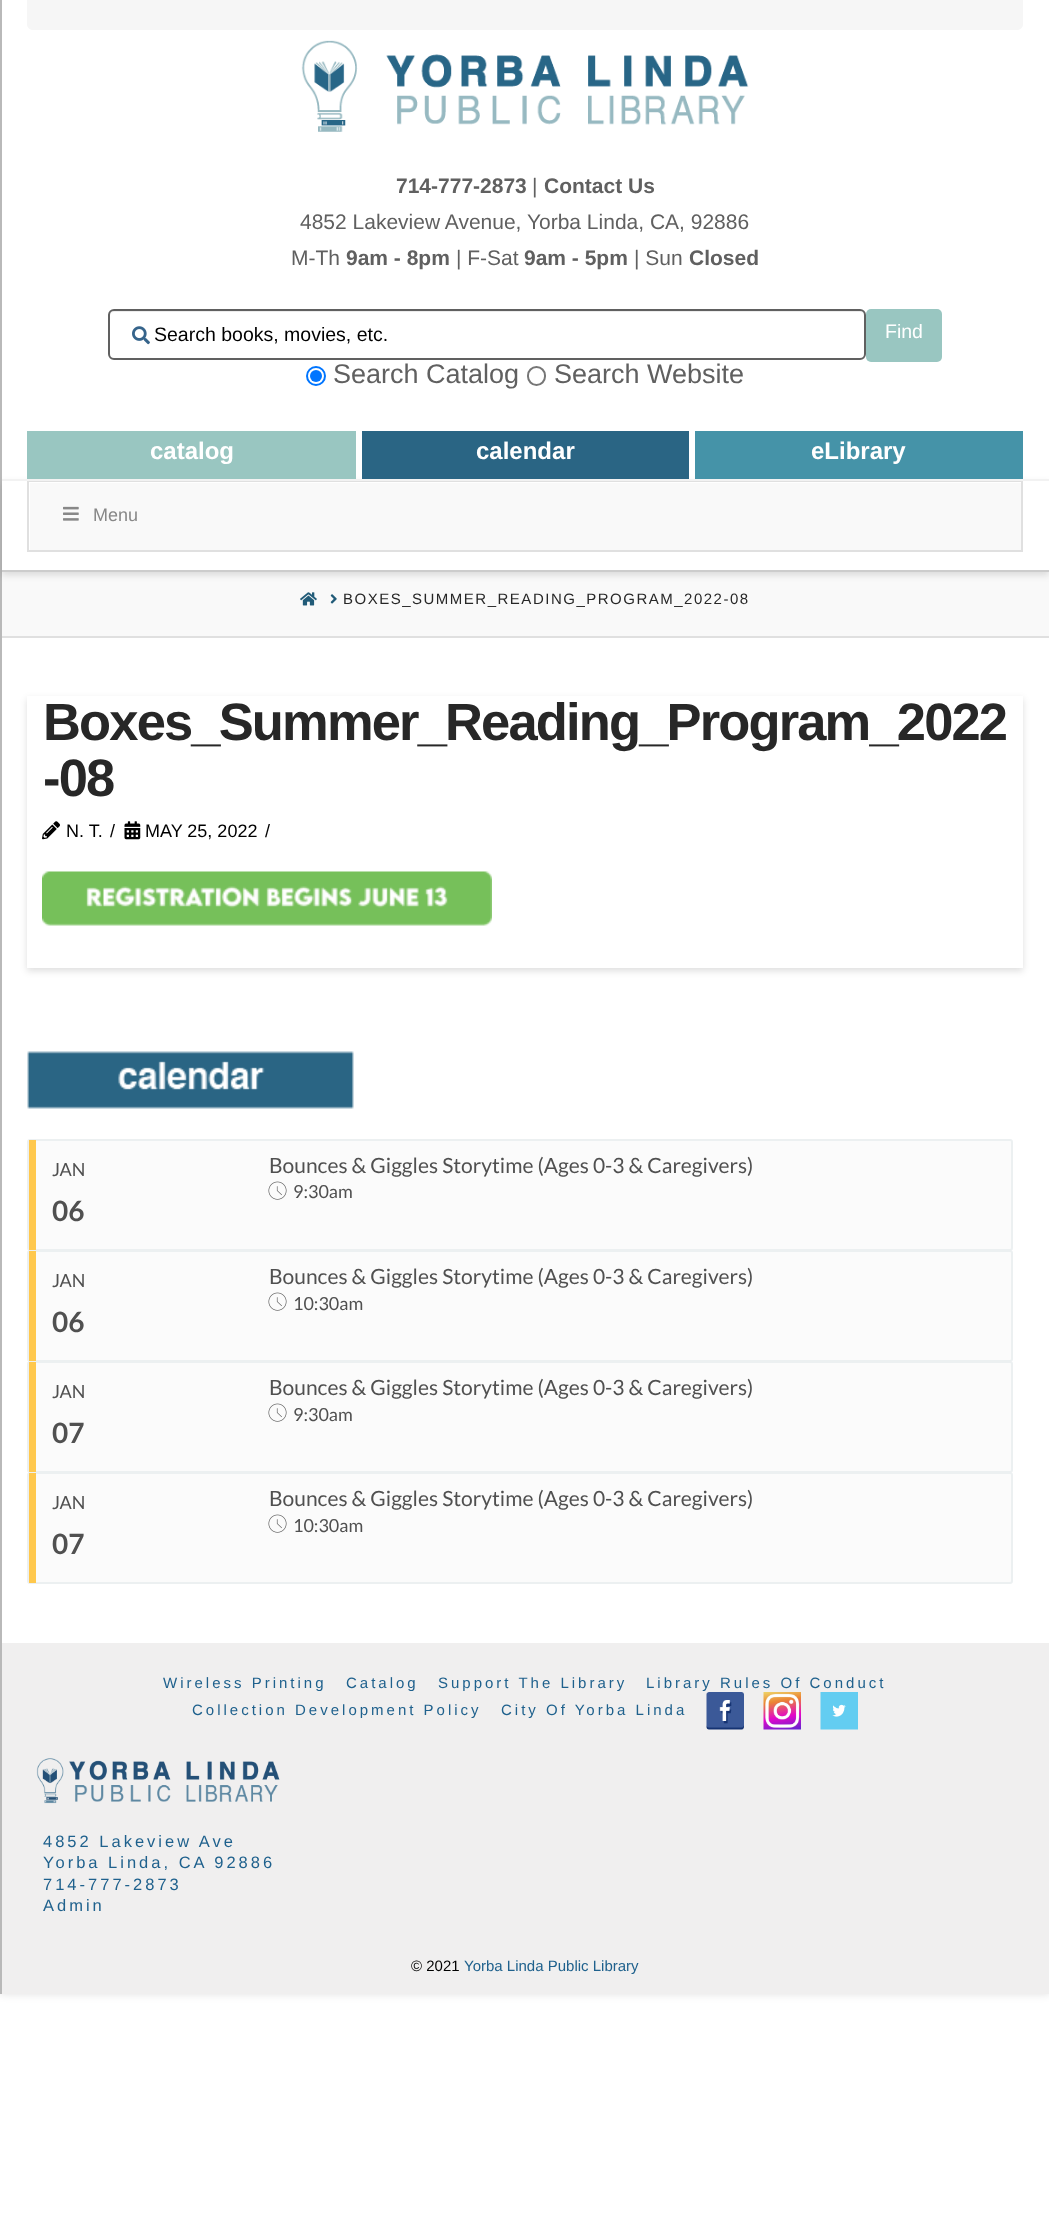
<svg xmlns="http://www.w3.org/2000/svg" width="1049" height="2219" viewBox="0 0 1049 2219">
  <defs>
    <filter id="blur1" x="-50%" y="-200%" width="200%" height="500%"><feGaussianBlur stdDeviation="4"/></filter>
    <clipPath id="clip1"><path d="M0 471H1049V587H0ZM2 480H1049V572H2Z" clip-rule="evenodd"/></clipPath>
    <filter id="blur2" x="-50%" y="-200%" width="200%" height="500%"><feGaussianBlur stdDeviation="3.5"/></filter>
  </defs>
  <rect width="100%" height="100%" fill="#ffffff"/>
  <rect x="0" y="0" width="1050" height="1994" fill="#000000" fill-opacity="0.12" filter="url(#blur1)"/>
  <rect x="2" y="0" width="1047" height="1643" fill="#ffffff"/>
  <rect x="0" y="0" width="2" height="1994" fill="#b9b9b9"/>
  <rect x="2" y="572" width="1047" height="64" fill="#f9f9f9"/>
  <g clip-path="url(#clip1)">
    <rect x="2" y="483" width="1047" height="92" fill="#000000" fill-opacity="0.13" filter="url(#blur2)"/>
  </g>
  <rect x="30" y="483" width="991" height="67" fill="#f9f9f9"/>
  <rect x="28" y="481" width="994" height="70" fill="none" stroke="#e0e0e0" stroke-width="2"/>
  <rect x="2" y="479" width="1047" height="2" fill="#f2f2f2"/>
  <path d="M27 0H1023V24C1023 27.5 1020.5 30 1017 30H33C29.5 30 27 27.5 27 24Z" fill="#f6f6f6"/>
  <image x="301" y="40" width="448" height="92" href="img1.png"/>
  <text x="396" y="193" font-family="Liberation Sans" font-size="21" font-weight="bold" fill="#606060">714-777-2873</text>
  <text x="532" y="193" font-family="Liberation Sans" font-size="21" fill="#606060">|</text>
  <text x="544" y="193" font-family="Liberation Sans" font-size="21" font-weight="bold" fill="#606060">Contact Us</text>
  <text x="300" y="229" font-family="Liberation Sans" font-size="21" fill="#606060">4852 Lakeview Avenue, Yorba Linda, CA, 92886</text>
  <text x="291" y="265" font-family="Liberation Sans" font-size="21" fill="#606060">M-Th</text>
  <text x="346" y="265" font-family="Liberation Sans" font-size="21" font-weight="bold" fill="#606060">9am - 8pm</text>
  <text x="456" y="265" font-family="Liberation Sans" font-size="21" fill="#606060">| F-Sat</text>
  <text x="524" y="265" font-family="Liberation Sans" font-size="21" font-weight="bold" fill="#606060">9am - 5pm</text>
  <text x="634" y="265" font-family="Liberation Sans" font-size="21" fill="#606060">| Sun</text>
  <text x="689" y="265" font-family="Liberation Sans" font-size="21" font-weight="bold" fill="#606060">Closed</text>
  <path d="M114 312H860C862 312 864 314 864 316C864 313 862 311 859 311H115C112 311 110 313 110 316C110 314 112 312 114 312Z" fill="#ececec"/>
  <rect x="109" y="310" width="756" height="49" rx="5" fill="none" stroke="#606060" stroke-width="2"/>
  <image x="132" y="326" width="18" height="19" href="img2.png"/>
  <text x="154" y="341" font-family="Liberation Sans" font-size="19.5" fill="#000000">Search books, movies, etc.</text>
  <rect x="866" y="309" width="76" height="53" rx="5" fill="#99c6c1"/>
  <text x="885" y="338" font-family="Liberation Sans" font-size="19.5" fill="#ffffff">Find</text>
  <circle cx="316" cy="376" r="9" fill="none" stroke="#0075ff" stroke-width="2"/>
  <circle cx="316" cy="376" r="6" fill="#0075ff"/>
  <text x="333" y="383" font-family="Liberation Sans" font-size="27" fill="#606060">Search Catalog</text>
  <rect x="528" y="367" width="17" height="18" rx="8.5" fill="none" stroke="#767676" stroke-width="2"/>
  <text x="554" y="383" font-family="Liberation Sans" font-size="27" fill="#606060">Search Website</text>
  <rect x="27" y="431" width="329" height="48" fill="#99c6c1"/>
  <text x="150" y="459" font-family="Liberation Sans" font-size="24" font-weight="bold" fill="#ffffff">catalog</text>
  <rect x="362" y="431" width="327" height="48" fill="#2a6584"/>
  <text x="476" y="459" font-family="Liberation Sans" font-size="24" font-weight="bold" fill="#ffffff">calendar</text>
  <rect x="695" y="431" width="328" height="48" fill="#4593a8"/>
  <text x="811" y="459" font-family="Liberation Sans" font-size="24" font-weight="bold" fill="#ffffff">eLibrary</text>
  <rect x="2" y="570" width="1047" height="2" fill="#cccccc"/>
  <image x="63" y="506" width="16" height="15" href="img3.png"/>
  <text x="93" y="521" font-family="Liberation Sans" font-size="18" fill="#888888">Menu</text>
  <rect x="2" y="636" width="1047" height="2" fill="#e0e0e0"/>
  <image x="300" y="592" width="17" height="14" href="img4.png"/>
  <image x="330" y="594" width="7" height="10" href="img5.png"/>
  <text x="343" y="604" font-family="Liberation Sans" font-size="15" letter-spacing="1.5" fill="#272727">BOXES_SUMMER_READING_PROGRAM_2022-08</text>
  <rect x="27" y="699" width="996" height="272" fill="#000000" fill-opacity="0.13" filter="url(#blur2)"/>
  <rect x="27" y="696" width="996" height="272" fill="#ffffff"/>
  <text x="43" y="740" font-family="Liberation Sans" font-size="52.5" font-weight="bold" letter-spacing="-1.85" fill="#272727">Boxes_Summer_Reading_Program_2022</text>
  <text x="43" y="796" font-family="Liberation Sans" font-size="52.5" font-weight="bold" letter-spacing="-1.85" fill="#272727">-08</text>
  <image x="42" y="821" width="18" height="19" href="img6.png"/>
  <text x="66" y="837" font-family="Liberation Sans" font-size="18" fill="#000000">N. T.</text>
  <text x="110" y="837" font-family="Liberation Sans" font-size="18" fill="#000000">/</text>
  <image x="124" y="821" width="17" height="19" href="img7.png"/>
  <text x="145" y="837" font-family="Liberation Sans" font-size="18" fill="#000000">MAY 25, 2022</text>
  <text x="265" y="837" font-family="Liberation Sans" font-size="18" fill="#000000">/</text>
  <image x="42" y="871" width="450" height="55" href="img8.png"/>
  <image x="27" y="1051" width="327" height="58" href="img9.png"/>
  <rect x="28" y="1140" width="984" height="110" rx="2" fill="#fbfbfb" stroke="#ecf0f1" stroke-width="2"/>
  <rect x="29" y="1140" width="7" height="110" fill="#ffc84d"/>
  <text x="52" y="1176" font-family="Lato" font-size="18" fill="#505050">JAN</text>
  <text x="52" y="1221" font-family="Lato" font-size="28" font-weight="bold" fill="#505050">06</text>
  <text x="269" y="1173" font-family="Lato" font-size="21" fill="#505050">Bounces &amp; Giggles Storytime (Ages 0-3 &amp; Caregivers)</text>
  <image x="268" y="1181" width="19" height="19" href="img10.png"/>
  <text x="293" y="1198" font-family="Lato" font-size="18" fill="#505050">9:30am</text>
  <rect x="28" y="1251" width="984" height="110" rx="2" fill="#fbfbfb" stroke="#ecf0f1" stroke-width="2"/>
  <rect x="29" y="1251" width="7" height="110" fill="#ffc84d"/>
  <text x="52" y="1287" font-family="Lato" font-size="18" fill="#505050">JAN</text>
  <text x="52" y="1332" font-family="Lato" font-size="28" font-weight="bold" fill="#505050">06</text>
  <text x="269" y="1284" font-family="Lato" font-size="21" fill="#505050">Bounces &amp; Giggles Storytime (Ages 0-3 &amp; Caregivers)</text>
  <image x="268" y="1292" width="19" height="19" href="img10.png"/>
  <text x="293" y="1310" font-family="Lato" font-size="18" fill="#505050">10:30am</text>
  <rect x="28" y="1362" width="984" height="110" rx="2" fill="#fbfbfb" stroke="#ecf0f1" stroke-width="2"/>
  <rect x="29" y="1362" width="7" height="110" fill="#ffc84d"/>
  <text x="52" y="1398" font-family="Lato" font-size="18" fill="#505050">JAN</text>
  <text x="52" y="1443" font-family="Lato" font-size="28" font-weight="bold" fill="#505050">07</text>
  <text x="269" y="1395" font-family="Lato" font-size="21" fill="#505050">Bounces &amp; Giggles Storytime (Ages 0-3 &amp; Caregivers)</text>
  <image x="268" y="1403" width="19" height="19" href="img10.png"/>
  <text x="293" y="1421" font-family="Lato" font-size="18" fill="#505050">9:30am</text>
  <rect x="28" y="1473" width="984" height="110" rx="2" fill="#fbfbfb" stroke="#ecf0f1" stroke-width="2"/>
  <rect x="29" y="1473" width="7" height="110" fill="#ffc84d"/>
  <text x="52" y="1509" font-family="Lato" font-size="18" fill="#505050">JAN</text>
  <text x="52" y="1554" font-family="Lato" font-size="28" font-weight="bold" fill="#505050">07</text>
  <text x="269" y="1506" font-family="Lato" font-size="21" fill="#505050">Bounces &amp; Giggles Storytime (Ages 0-3 &amp; Caregivers)</text>
  <image x="268" y="1514" width="19" height="19" href="img10.png"/>
  <text x="293" y="1532" font-family="Lato" font-size="18" fill="#505050">10:30am</text>
  <rect x="2" y="1643" width="1047" height="351" fill="#f0efef"/>
  <text x="163" y="1688" font-family="Liberation Sans" font-size="15" letter-spacing="3" fill="#1f618d">Wireless Printing</text>
  <text x="346" y="1688" font-family="Liberation Sans" font-size="15" letter-spacing="3" fill="#1f618d">Catalog</text>
  <text x="438" y="1688" font-family="Liberation Sans" font-size="15" letter-spacing="3" fill="#1f618d">Support The Library</text>
  <text x="646" y="1688" font-family="Liberation Sans" font-size="15" letter-spacing="3" fill="#1f618d">Library Rules Of Conduct</text>
  <text x="192" y="1715" font-family="Liberation Sans" font-size="15" letter-spacing="3" fill="#1f618d">Collection Development Policy</text>
  <text x="501" y="1715" font-family="Liberation Sans" font-size="15" letter-spacing="3" fill="#1f618d">City Of Yorba Linda</text>
  <image x="706" y="1692" width="38" height="38" href="img11.png"/>
  <image x="763" y="1692" width="38" height="38" href="img12.png"/>
  <image x="820" y="1692" width="38" height="38" href="img13.png"/>
  <image x="36" y="1758" width="244" height="46" href="img14.png"/>
  <text x="43" y="1847" font-family="Liberation Sans" font-size="16.5" letter-spacing="3" fill="#1f618d">4852 Lakeview Ave</text>
  <text x="43" y="1868" font-family="Liberation Sans" font-size="16.5" letter-spacing="3" fill="#1f618d">Yorba Linda, CA 92886</text>
  <text x="43" y="1890" font-family="Liberation Sans" font-size="16.5" letter-spacing="3" fill="#1f618d">714-777-2873</text>
  <text x="43" y="1911" font-family="Liberation Sans" font-size="16.5" letter-spacing="3" fill="#1f618d">Admin</text>
  <text x="411" y="1971" font-family="Liberation Sans" font-size="15" fill="#000000">© 2021</text>
  <text x="464" y="1971" font-family="Liberation Sans" font-size="15" fill="#1f618d">Yorba Linda Public Library</text>
</svg>
